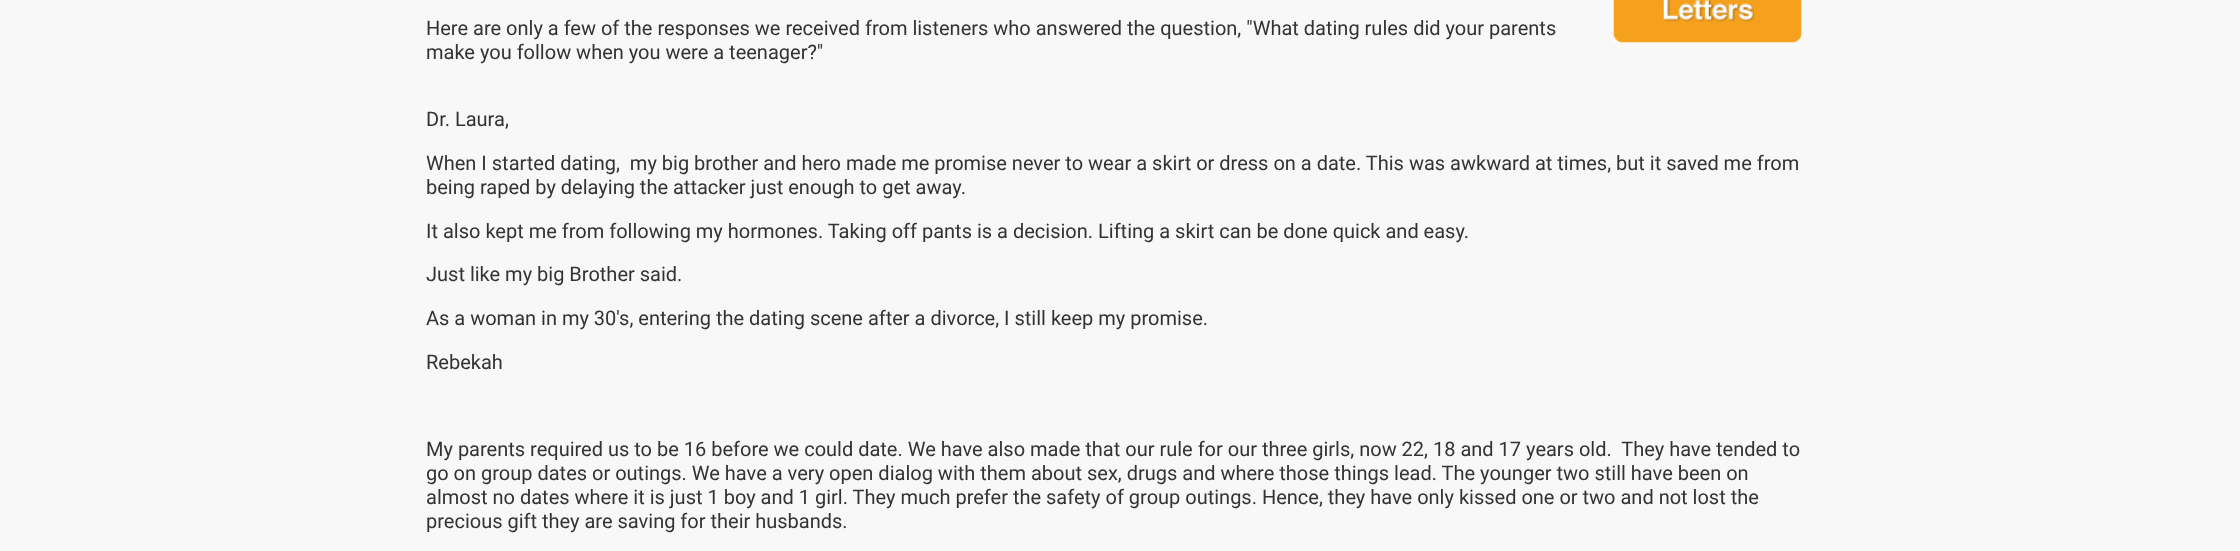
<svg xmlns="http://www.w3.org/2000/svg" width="2240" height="551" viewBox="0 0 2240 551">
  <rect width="100%" height="100%" fill="#f8f8f8"/>
  <image x="1613" y="0" width="189" height="43" href="img1.png"/>
  <text x="426" y="35" font-family="Roboto" font-size="20" fill="#333333">Here are only a few of the responses we received from listeners who answered the question, "What dating rules did your parents</text>
  <text x="426" y="59" font-family="Roboto" font-size="20" fill="#333333">make you follow when you were a teenager?"</text>
  <text x="426" y="126" font-family="Roboto" font-size="20" fill="#333333">Dr. Laura,</text>
  <text x="426" y="170" font-family="Roboto" font-size="20" fill="#333333" xml:space="preserve">When I started dating,  my big brother and hero made me promise never to wear a skirt or dress on a date. This was awkward at times, but it saved me from</text>
  <text x="426" y="194" font-family="Roboto" font-size="20" fill="#333333">being raped by delaying the attacker just enough to get away.</text>
  <text x="426" y="238" font-family="Roboto" font-size="20" fill="#333333">It also kept me from following my hormones. Taking off pants is a decision. Lifting a skirt can be done quick and easy.</text>
  <text x="426" y="281" font-family="Roboto" font-size="20" fill="#333333">Just like my big Brother said.</text>
  <text x="426" y="325" font-family="Roboto" font-size="20" fill="#333333">As a woman in my 30's, entering the dating scene after a divorce, I still keep my promise.</text>
  <text x="426" y="369" font-family="Roboto" font-size="20" fill="#333333">Rebekah</text>
  <text x="426" y="456" font-family="Roboto" font-size="20" fill="#333333" xml:space="preserve">My parents required us to be 16 before we could date. We have also made that our rule for our three girls, now 22, 18 and 17 years old.  They have tended to</text>
  <text x="426" y="480" font-family="Roboto" font-size="20" fill="#333333">go on group dates or outings. We have a very open dialog with them about sex, drugs and where those things lead. The younger two still have been on</text>
  <text x="426" y="504" font-family="Roboto" font-size="20" fill="#333333">almost no dates where it is just 1 boy and 1 girl. They much prefer the safety of group outings. Hence, they have only kissed one or two and not lost the</text>
  <text x="426" y="528" font-family="Roboto" font-size="20" fill="#333333">precious gift they are saving for their husbands.</text>
</svg>
